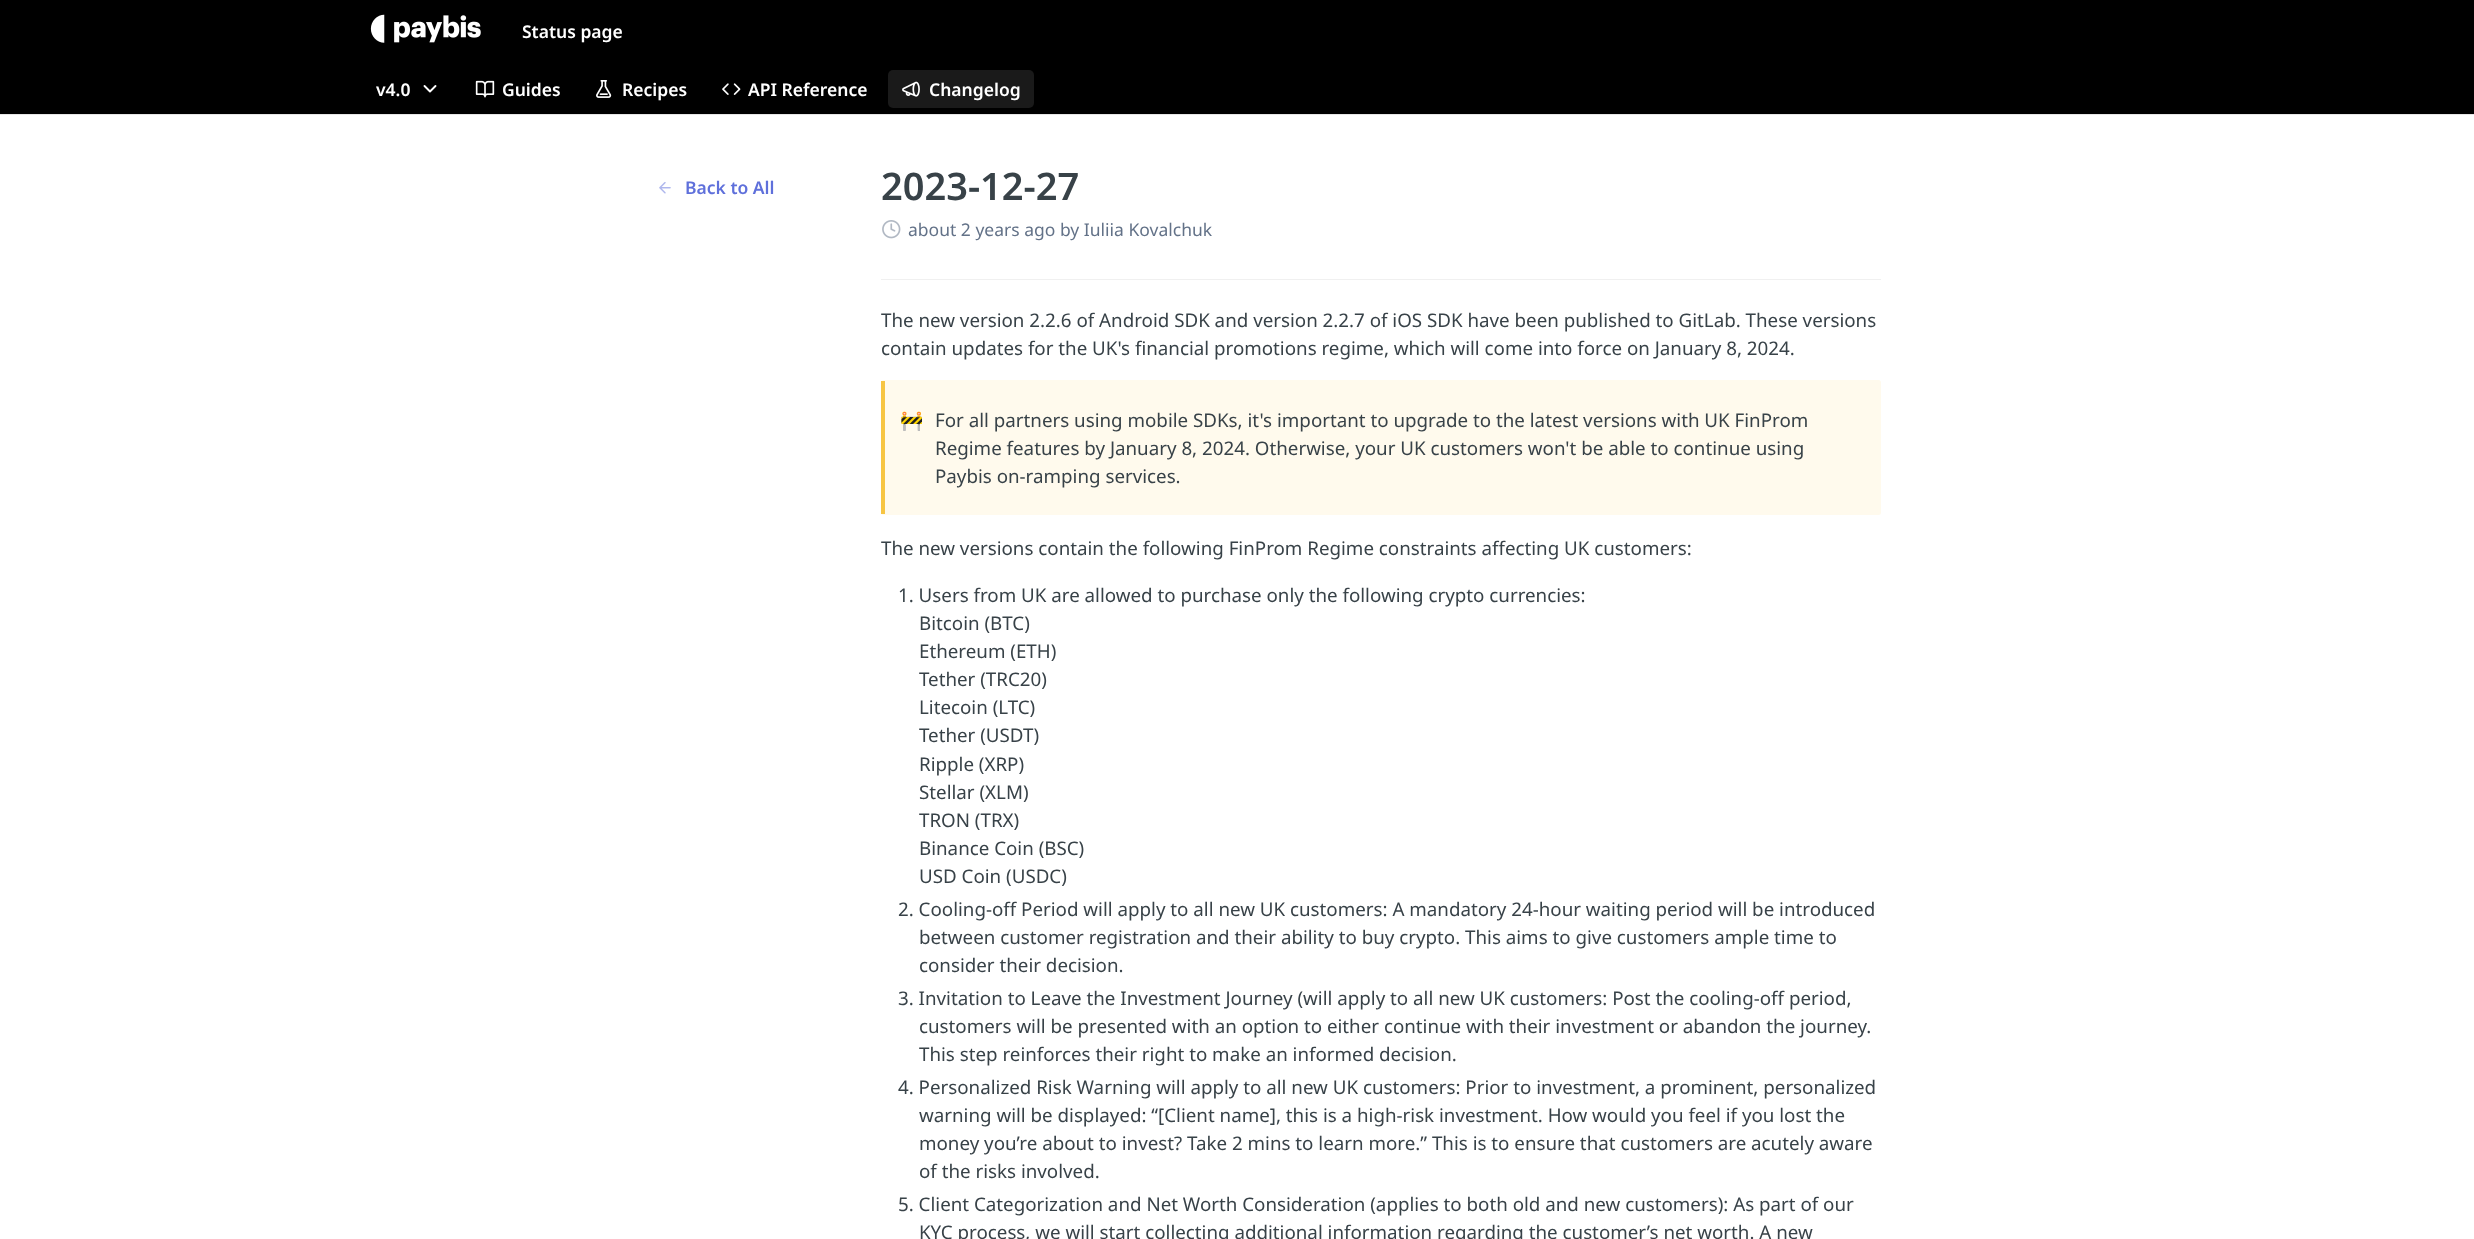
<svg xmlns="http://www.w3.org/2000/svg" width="2474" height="1239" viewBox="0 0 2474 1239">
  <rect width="100%" height="100%" fill="#ffffff"/>
  <rect x="0" y="114" width="2474" height="1" fill="#e6e6e6"/>
  <rect x="0" y="0" width="2474" height="114" fill="#000000"/>
  <image x="370" y="14" width="111" height="29" href="img1.png"/>
  <text x="522" y="38" font-family="Noto Sans" font-size="17.5" font-weight="600" fill="#ffffff">Status page</text>
  <text x="376" y="96" font-family="Noto Sans" font-size="17.5" font-weight="600" fill="#ffffff">v4.0</text>
  <path d="M424.5 86L430 91.5L435.5 86" fill="none" stroke="#ffffff" stroke-width="1.9" stroke-linecap="round" stroke-linejoin="round"/>
  <image x="475" y="80" width="20" height="18" href="img2.png"/>
  <text x="502" y="96" font-family="Noto Sans" font-size="17.5" font-weight="600" fill="#ffffff">Guides</text>
  <image x="596" y="80" width="16" height="18" href="img3.png"/>
  <text x="622" y="96" font-family="Noto Sans" font-size="17.5" font-weight="600" fill="#ffffff">Recipes</text>
  <image x="722" y="83" width="19" height="12" href="img4.png"/>
  <text x="748" y="96" font-family="Noto Sans" font-size="17.5" font-weight="600" fill="#ffffff">API Reference</text>
  <rect x="888" y="70" width="146" height="38" rx="5" fill="#1a1a1a"/>
  <image x="902" y="81" width="18" height="16" href="img5.png"/>
  <text x="929" y="96" font-family="Noto Sans" font-size="17.5" font-weight="600" fill="#ffffff">Changelog</text>
  <image x="659" y="182" width="12" height="12" href="img6.png"/>
  <text x="685" y="194" font-family="Noto Sans" font-size="17.5" font-weight="600" fill="#5f70db">Back to All</text>
  <rect x="881" y="279" width="1000" height="1" fill="#f0f0f0"/>
  <text x="881" y="200" font-family="Noto Sans" font-size="38" font-weight="600" fill="#384248">2023-12-27</text>
  <image x="882" y="220" width="19" height="19" href="img7.png"/>
  <text x="908" y="236" font-family="Noto Sans" font-size="17.5" fill="#637288">about 2 years ago by Iuliia Kovalchuk</text>
  <text x="881" y="327" font-family="Noto Sans" font-size="18.75" fill="#384248">The new version 2.2.6 of Android SDK and version 2.2.7 of iOS SDK have been published to GitLab. These versions</text>
  <text x="881" y="355" font-family="Noto Sans" font-size="18.75" fill="#384248">contain updates for the UK's financial promotions regime, which will come into force on January 8, 2024.</text>
  <rect x="881" y="380" width="1000" height="135" rx="2.5" fill="#fffaed"/>
  <rect x="881" y="381" width="4" height="133" fill="#f7c543"/>
  <text x="900" y="427" font-family="Noto Color Emoji" font-size="18.75" fill="#384248">🚧</text>
  <text x="935" y="427" font-family="Noto Sans" font-size="18.75" fill="#384248">For all partners using mobile SDKs, it's important to upgrade to the latest versions with UK FinProm</text>
  <text x="935" y="455" font-family="Noto Sans" font-size="18.75" fill="#384248">Regime features by January 8, 2024. Otherwise, your UK customers won't be able to continue using</text>
  <text x="935" y="483" font-family="Noto Sans" font-size="18.75" fill="#384248">Paybis on-ramping services.</text>
  <text x="881" y="555" font-family="Noto Sans" font-size="18.75" fill="#384248">The new versions contain the following FinProm Regime constraints affecting UK customers:</text>
  <text x="898" y="602" font-family="Noto Sans" font-size="18.75" fill="#384248">1. Users from UK are allowed to purchase only the following crypto currencies:</text>
  <text x="919" y="630" font-family="Noto Sans" font-size="18.75" fill="#384248">Bitcoin (BTC)</text>
  <text x="919" y="658" font-family="Noto Sans" font-size="18.75" fill="#384248">Ethereum (ETH)</text>
  <text x="919" y="686" font-family="Noto Sans" font-size="18.75" fill="#384248">Tether (TRC20)</text>
  <text x="919" y="714" font-family="Noto Sans" font-size="18.75" fill="#384248">Litecoin (LTC)</text>
  <text x="919" y="742" font-family="Noto Sans" font-size="18.75" fill="#384248">Tether (USDT)</text>
  <text x="919" y="771" font-family="Noto Sans" font-size="18.75" fill="#384248">Ripple (XRP)</text>
  <text x="919" y="799" font-family="Noto Sans" font-size="18.75" fill="#384248">Stellar (XLM)</text>
  <text x="919" y="827" font-family="Noto Sans" font-size="18.75" fill="#384248">TRON (TRX)</text>
  <text x="919" y="855" font-family="Noto Sans" font-size="18.75" fill="#384248">Binance Coin (BSC)</text>
  <text x="919" y="883" font-family="Noto Sans" font-size="18.75" fill="#384248">USD Coin (USDC)</text>
  <text x="898" y="916" font-family="Noto Sans" font-size="18.75" fill="#384248">2. Cooling-off Period will apply to all new UK customers: A mandatory 24-hour waiting period will be introduced</text>
  <text x="919" y="944" font-family="Noto Sans" font-size="18.75" fill="#384248">between customer registration and their ability to buy crypto. This aims to give customers ample time to</text>
  <text x="919" y="972" font-family="Noto Sans" font-size="18.75" fill="#384248">consider their decision.</text>
  <text x="898" y="1005" font-family="Noto Sans" font-size="18.75" fill="#384248">3. Invitation to Leave the Investment Journey (will apply to all new UK customers: Post the cooling-off period,</text>
  <text x="919" y="1033" font-family="Noto Sans" font-size="18.75" fill="#384248">customers will be presented with an option to either continue with their investment or abandon the journey.</text>
  <text x="919" y="1061" font-family="Noto Sans" font-size="18.75" fill="#384248">This step reinforces their right to make an informed decision.</text>
  <text x="898" y="1094" font-family="Noto Sans" font-size="18.75" fill="#384248">4. Personalized Risk Warning will apply to all new UK customers: Prior to investment, a prominent, personalized</text>
  <text x="919" y="1122" font-family="Noto Sans" font-size="18.75" fill="#384248">warning will be displayed: “[Client name], this is a high-risk investment. How would you feel if you lost the</text>
  <text x="919" y="1150" font-family="Noto Sans" font-size="18.75" fill="#384248">money you’re about to invest? Take 2 mins to learn more.” This is to ensure that customers are acutely aware</text>
  <text x="919" y="1178" font-family="Noto Sans" font-size="18.75" fill="#384248">of the risks involved.</text>
  <text x="898" y="1211" font-family="Noto Sans" font-size="18.75" fill="#384248">5. Client Categorization and Net Worth Consideration (applies to both old and new customers): As part of our</text>
  <text x="919" y="1239" font-family="Noto Sans" font-size="18.75" fill="#384248">KYC process, we will start collecting additional information regarding the customer’s net worth. A new</text>
</svg>
